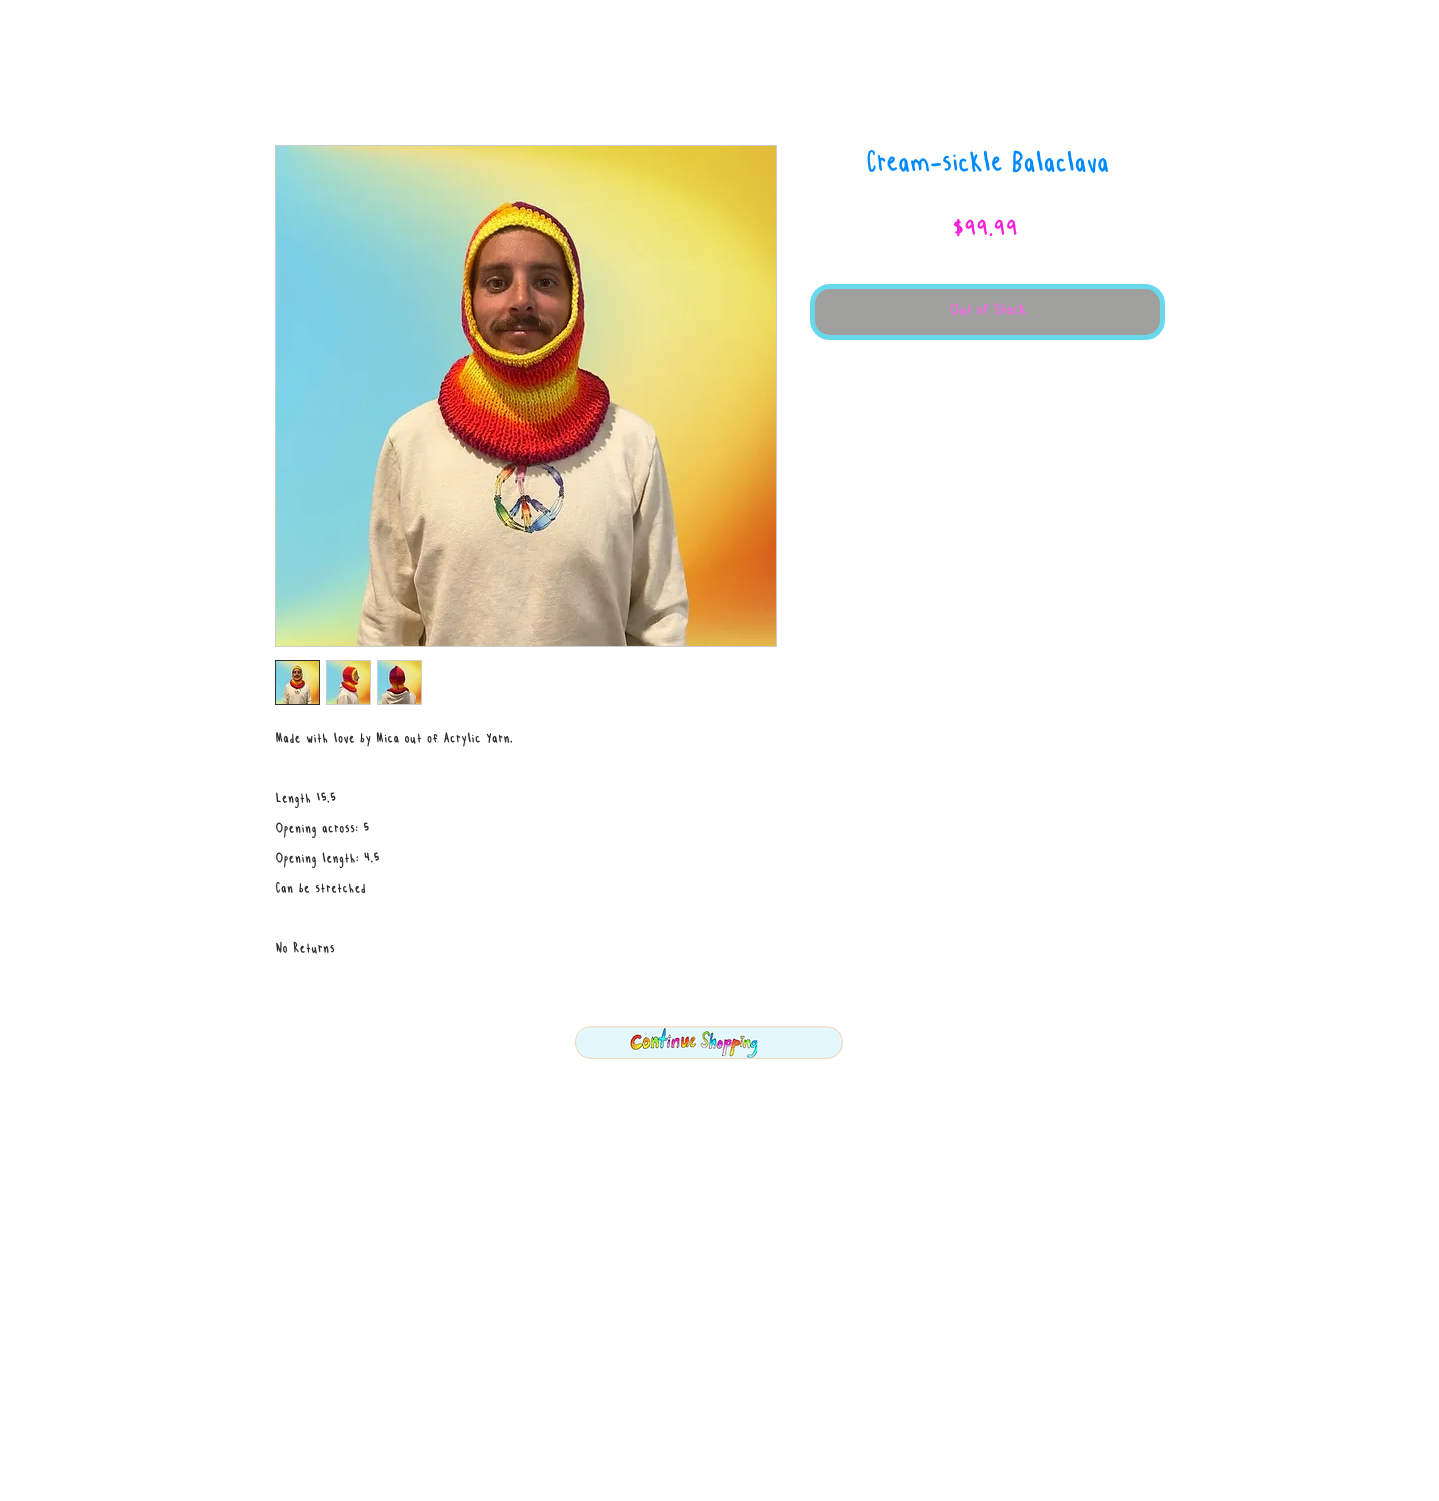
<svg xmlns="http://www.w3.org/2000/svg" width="1439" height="1501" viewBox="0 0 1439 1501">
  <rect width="100%" height="100%" fill="#ffffff"/>
  <text x="866" y="176" font-family="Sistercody" font-size="36" font-weight="bold" fill="#008afc">Cream-sickle Balaclava</text>
  <text x="952" y="240" font-family="'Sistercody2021'" font-size="33" font-weight="bold" fill="#f522db">$99.99</text>
  <rect x="812.5" y="286.5" width="350" height="51" rx="17.5" fill="#a0a09f" stroke="#68d9ed" stroke-width="5"/>
  <text x="950" y="317" font-family="Sistercody" font-size="20" font-weight="bold" fill="#ff66ec">Out of Stock</text>
  <rect x="275.5" y="145.5" width="501" height="501" fill="none" stroke="#cccccc"/>
  <image x="276" y="146" width="500" height="500" href="img1.png"/>
  <rect x="275.5" y="660.5" width="44" height="44" fill="none" stroke="#2f2e2e"/>
  <image x="276" y="661" width="43" height="43" href="img2.png"/>
  <rect x="326" y="660" width="45" height="45" fill="#cccccc"/>
  <image x="327" y="661" width="43" height="43" href="img3.png"/>
  <rect x="377" y="660" width="45" height="45" fill="#cccccc"/>
  <image x="378" y="661" width="43" height="43" href="img4.png"/>
  <text x="275" y="745" font-family="'Sistercody2021'" font-size="20" font-weight="bold" fill="#2f2e2e">Made with love by Mica out of Acrylic Yarn.</text>
  <text x="275" y="805" font-family="'Sistercody2021'" font-size="20" font-weight="bold" fill="#2f2e2e">Length 15.5</text>
  <text x="275" y="835" font-family="'Sistercody2021'" font-size="20" font-weight="bold" fill="#2f2e2e">Opening across: 5</text>
  <text x="275" y="865" font-family="'Sistercody2021'" font-size="20" font-weight="bold" fill="#2f2e2e">Opening length: 4.5</text>
  <text x="275" y="895" font-family="'Sistercody2021'" font-size="20" font-weight="bold" fill="#2f2e2e">Can be stretched</text>
  <text x="275" y="955" font-family="'Sistercody2021'" font-size="20" font-weight="bold" fill="#2f2e2e">No Returns</text>
  <image x="575" y="1026" width="268" height="33" href="img5.png"/>
</svg>
